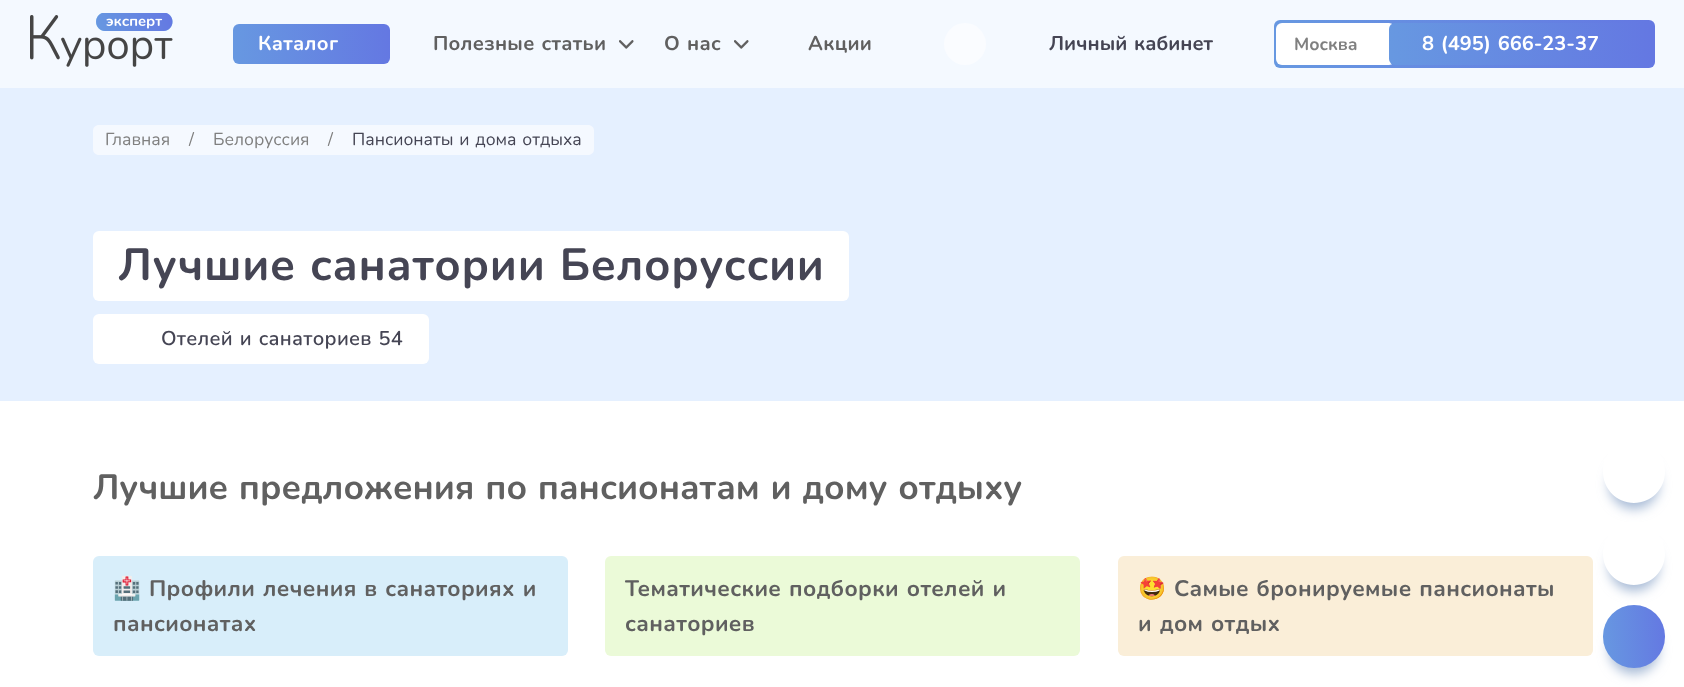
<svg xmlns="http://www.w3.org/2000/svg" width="1684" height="687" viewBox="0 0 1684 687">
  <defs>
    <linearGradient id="g1" gradientUnits="userSpaceOnUse" x1="232" y1="49" x2="391" y2="38"><stop offset="0.01" stop-color="#6798e1"/><stop offset="0.99" stop-color="#6478e2"/></linearGradient>
    <linearGradient id="g2" gradientUnits="userSpaceOnUse" x1="1273" y1="57" x2="1656" y2="31"><stop offset="0.01" stop-color="#6798e1"/><stop offset="0.99" stop-color="#6478e2"/></linearGradient>
    <linearGradient id="g3" gradientUnits="userSpaceOnUse" x1="1388" y1="53" x2="1653" y2="35"><stop offset="0.01" stop-color="#6798e1"/><stop offset="0.99" stop-color="#6478e2"/></linearGradient>
    <clipPath id="clip1"><path d="M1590 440H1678V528H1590ZM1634 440C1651 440 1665 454 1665 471V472C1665 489 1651 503 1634 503C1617 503 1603 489 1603 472V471C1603 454 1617 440 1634 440Z" clip-rule="evenodd"/></clipPath>
    <filter id="blur1" x="-50%" y="-200%" width="200%" height="500%"><feGaussianBlur stdDeviation="6"/></filter>
    <clipPath id="clip2"><path d="M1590 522H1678V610H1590ZM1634 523C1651 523 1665 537 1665 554C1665 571 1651 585 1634 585C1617 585 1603 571 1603 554C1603 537 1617 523 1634 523Z" clip-rule="evenodd"/></clipPath>
    <linearGradient id="g4" gradientUnits="userSpaceOnUse" x1="1601" y1="639" x2="1667" y2="634"><stop offset="0.01" stop-color="#6798e1"/><stop offset="0.99" stop-color="#6478e2"/></linearGradient>
  </defs>
  <rect width="100%" height="100%" fill="#ffffff"/>
  <rect x="0" y="88" width="1684" height="313" fill="#e5f0ff"/>
  <rect x="0" y="0" width="1684" height="88" fill="#f4f9ff"/>
  <image x="30" y="13" width="143" height="54" href="img1.png"/>
  <rect x="233" y="24" width="157" height="40" rx="6" fill="url(#g1)"/>
  <text x="258" y="50" font-family="Nunito" font-size="20" font-weight="bold" letter-spacing="0.3" fill="#ffffff">Каталог</text>
  <image x="619" y="40" width="15" height="9" href="img2.png"/>
  <text x="433" y="50" word-spacing="1.25" font-family="Nunito" font-size="20" font-weight="bold" letter-spacing="0.3" fill="#606060">Полезные статьи</text>
  <image x="734" y="40" width="15" height="9" href="img2.png"/>
  <text x="664" y="50" word-spacing="1.25" font-family="Nunito" font-size="20" font-weight="bold" letter-spacing="0.3" fill="#606060">О нас</text>
  <text x="808" y="50" font-family="Nunito" font-size="20" font-weight="bold" letter-spacing="0.3" fill="#606060">Акции</text>
  <circle cx="965" cy="44" r="21" fill="#fafcff"/>
  <text x="1049" y="50" word-spacing="1.25" font-family="Nunito" font-size="20" font-weight="bold" fill="#454554">Личный кабинет</text>
  <rect x="1274" y="20" width="381" height="48" rx="6" fill="url(#g2)"/>
  <rect x="1276" y="23" width="119" height="42" rx="6" fill="#ffffff"/>
  <text x="1294" y="50" font-family="Nunito" font-size="17.5" font-weight="bold" fill="#808080">Москва</text>
  <rect x="1389" y="23" width="264" height="42" rx="6" fill="url(#g3)"/>
  <text x="1422" y="50" word-spacing="1.25" font-family="Nunito" font-size="20" font-weight="bold" fill="#ffffff">8 (495) 666-23-37</text>
  <path d="M99 125H213V155H99C95.5 155 93 152.5 93 149V131C93 127.5 95.5 125 99 125Z" fill="#f5f9ff"/>
  <text x="105" y="145" font-family="Nunito" font-size="17.5" fill="#808080">Главная</text>
  <text x="189" y="145" font-family="Nunito" font-size="17.5" fill="#808080">/</text>
  <rect x="213" y="125" width="138" height="30" fill="#f5f9ff"/>
  <text x="213" y="145" font-family="Nunito" font-size="17.5" fill="#808080">Белоруссия</text>
  <text x="328" y="145" font-family="Nunito" font-size="17.5" fill="#808080">/</text>
  <path d="M351 125H588C591.5 125 594 127.5 594 131V149C594 152.5 591.5 155 588 155H351Z" fill="#f5f9ff"/>
  <text x="352" y="145" word-spacing="1.25" font-family="Nunito" font-size="17.5" fill="#454554">Пансионаты и дома отдыха</text>
  <rect x="93" y="231" width="756" height="70" rx="6" fill="#ffffff"/>
  <text x="118" y="280" word-spacing="1.25" font-family="Nunito" font-size="45" font-weight="bold" letter-spacing="0.7" fill="#454554">Лучшие санатории Белоруссии</text>
  <rect x="93" y="314" width="336" height="50" rx="6" fill="#ffffff"/>
  <text x="161" y="345" word-spacing="1.25" font-family="Nunito" font-size="20" font-weight="600" letter-spacing="0.3" fill="#454554">Отелей и санаториев 54</text>
  <text x="93" y="499" word-spacing="1.25" font-family="Nunito" font-size="35" font-weight="bold" fill="#606060">Лучшие предложения по пансионатам и дому отдыху</text>
  <rect x="93" y="556" width="475" height="100" rx="6" fill="#d8eefa"/>
  <text x="113" y="596" font-family="Noto Color Emoji" font-size="22.5" font-weight="bold" letter-spacing="0.35" fill="#606060">🏥</text>
  <text x="149" y="596" word-spacing="1.25" font-family="Nunito" font-size="22.5" font-weight="bold" letter-spacing="0.35" fill="#606060">Профили лечения в санаториях и</text>
  <text x="113" y="631" font-family="Nunito" font-size="22.5" font-weight="bold" letter-spacing="0.35" fill="#606060">пансионатах</text>
  <rect x="605" y="556" width="475" height="100" rx="6" fill="#ebfad8"/>
  <text x="625" y="596" word-spacing="1.25" font-family="Nunito" font-size="22.5" font-weight="bold" letter-spacing="0.35" fill="#606060">Тематические подборки отелей и</text>
  <text x="625" y="631" font-family="Nunito" font-size="22.5" font-weight="bold" letter-spacing="0.35" fill="#606060">санаториев</text>
  <rect x="1118" y="556" width="475" height="100" rx="6" fill="#faeed8"/>
  <text x="1138" y="596" font-family="Noto Color Emoji" font-size="22.5" font-weight="bold" letter-spacing="0.35" fill="#606060">🤩</text>
  <text x="1174" y="596" word-spacing="1.25" font-family="Nunito" font-size="22.5" font-weight="bold" letter-spacing="0.35" fill="#606060">Самые бронируемые пансионаты</text>
  <text x="1138" y="631" word-spacing="1.25" font-family="Nunito" font-size="22.5" font-weight="bold" letter-spacing="0.35" fill="#606060">и дом отдых</text>
  <g clip-path="url(#clip1)">
    <rect x="1609" y="459" width="50" height="50" rx="25" fill="#a6b9d5" filter="url(#blur1)"/>
  </g>
  <g clip-path="url(#clip2)">
    <rect x="1609" y="541" width="50" height="50" rx="25" fill="#a6b9d5" filter="url(#blur1)"/>
  </g>
  <rect x="1609" y="624" width="50" height="50" rx="25" fill="#a6b9d5" filter="url(#blur1)"/>
  <rect x="1603" y="605" width="62" height="63" rx="31" fill="url(#g4)"/>
</svg>
